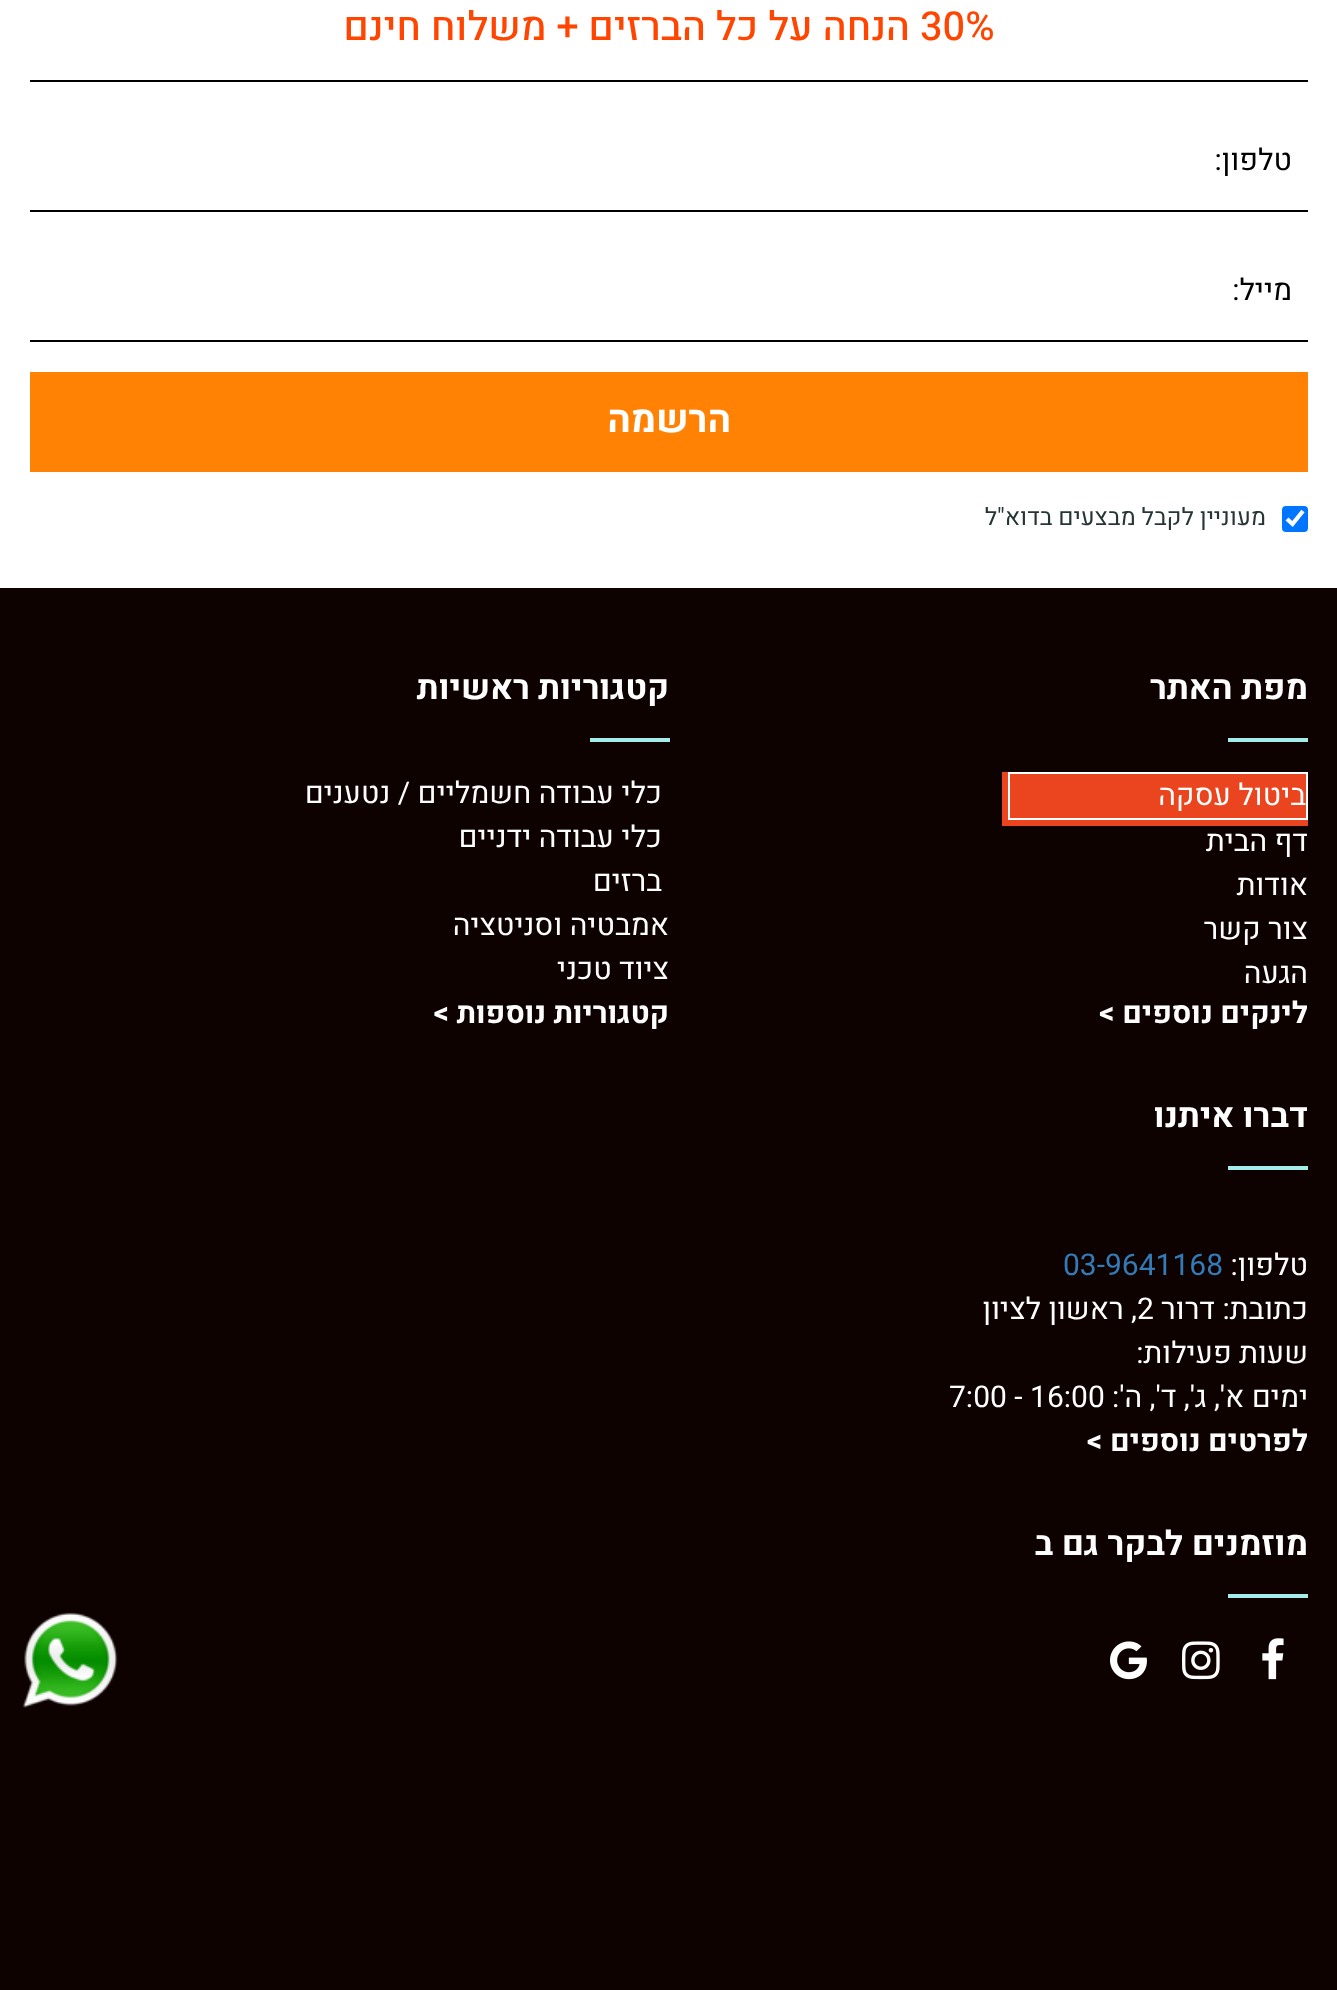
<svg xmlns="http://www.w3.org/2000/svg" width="1337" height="1990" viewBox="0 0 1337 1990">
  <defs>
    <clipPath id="clip1"><rect x="690" y="772" width="618" height="220"/></clipPath>
  </defs>
  <rect width="100%" height="100%" fill="#ffffff"/>
  <text x="920" y="40" font-family="Heebo" font-size="40" font-weight="500" fill="#ff4500">30%</text>
  <text x="910" y="40" font-family="Heebo" font-size="40" font-weight="500" direction="rtl" fill="#ff4500">הנחה על כל הברזים + משלוח חינם</text>
  <rect x="30" y="80" width="1278" height="2" fill="#000000"/>
  <rect x="30" y="210" width="1278" height="2" fill="#000000"/>
  <text x="1292" y="170" font-family="Heebo" font-size="30" direction="rtl" fill="#000000">טלפון:</text>
  <rect x="30" y="340" width="1278" height="2" fill="#000000"/>
  <text x="1292" y="300" font-family="Heebo" font-size="30" direction="rtl" fill="#000000">מייל:</text>
  <rect x="30" y="372" width="1278" height="100" fill="#ff8204"/>
  <text x="731" y="432" font-family="Heebo" font-size="38" font-weight="bold" direction="rtl" fill="#ffffff">הרשמה</text>
  <rect x="1282" y="506" width="26" height="26" rx="4" fill="#0075ff"/>
  <path d="M1287 519L1292.5 524L1303 511" fill="none" stroke="#ffffff" stroke-width="4.2"/>
  <text x="1266" y="525" font-family="Heebo" font-size="24" direction="rtl" fill="#273536">מעוניין לקבל מבצעים בדוא"ל</text>
  <rect x="0" y="588" width="1337" height="1402" fill="#0e0201"/>
  <text x="1308" y="699" font-family="Heebo" font-size="34" font-weight="bold" direction="rtl" fill="#ffffff">מפת האתר</text>
  <rect x="1228" y="738" width="80" height="4" fill="#a5ebe9"/>
  <g clip-path="url(#clip1)">
    <rect x="1005" y="769" width="306" height="54" fill="none" stroke="#ea451e" stroke-width="6"/>
  </g>
  <rect x="1009" y="773" width="298" height="46" fill="#ea451e" stroke="#ffffff" stroke-width="2"/>
  <text x="1306" y="805" font-family="Heebo" font-size="30" direction="rtl" fill="#ffffff">ביטול עסקה</text>
  <text x="1308" y="851" font-family="Heebo" font-size="30" direction="rtl" fill="#ffffff">דף הבית</text>
  <text x="1308" y="895" font-family="Heebo" font-size="30" direction="rtl" fill="#ffffff">אודות</text>
  <text x="1308" y="939" font-family="Heebo" font-size="30" direction="rtl" fill="#ffffff">צור קשר</text>
  <text x="1308" y="983" font-family="Heebo" font-size="30" direction="rtl" fill="#ffffff">הגעה</text>
  <text x="1308" y="1023" font-family="Heebo" font-size="30" font-weight="bold" direction="rtl" fill="#ffffff">לינקים נוספים &gt;</text>
  <text x="669" y="699" font-family="Heebo" font-size="34" font-weight="bold" direction="rtl" fill="#ffffff">קטגוריות ראשיות</text>
  <rect x="590" y="738" width="80" height="4" fill="#a5ebe9"/>
  <text x="662" y="803" font-family="Heebo" font-size="30" direction="rtl" fill="#ffffff">כלי עבודה חשמליים / נטענים</text>
  <text x="662" y="847" font-family="Heebo" font-size="30" direction="rtl" fill="#ffffff">כלי עבודה ידניים</text>
  <text x="662" y="891" font-family="Heebo" font-size="30" direction="rtl" fill="#ffffff">ברזים</text>
  <text x="669" y="935" font-family="Heebo" font-size="30" direction="rtl" fill="#ffffff">אמבטיה וסניטציה</text>
  <text x="669" y="979" font-family="Heebo" font-size="30" direction="rtl" fill="#ffffff">ציוד טכני</text>
  <text x="669" y="1023" font-family="Heebo" font-size="30" font-weight="bold" direction="rtl" fill="#ffffff">קטגוריות נוספות &gt;</text>
  <text x="1308" y="1127" font-family="Heebo" font-size="34" font-weight="bold" direction="rtl" fill="#ffffff">דברו איתנו</text>
  <rect x="1228" y="1166" width="80" height="4" fill="#a5ebe9"/>
  <text x="1308" y="1275" font-family="Heebo" font-size="30" direction="rtl" fill="#ffffff">טלפון:</text>
  <text x="1063" y="1275" font-family="Heebo" font-size="30" fill="#337ab7">03-9641168</text>
  <text x="1308" y="1319" font-family="Heebo" font-size="30" direction="rtl" fill="#ffffff">כתובת: דרור</text>
  <text x="1137" y="1319" font-family="Heebo" font-size="30" fill="#ffffff">2</text>
  <text x="1137" y="1319" font-family="Heebo" font-size="30" direction="rtl" fill="#ffffff">, ראשון לציון</text>
  <text x="1308" y="1363" font-family="Heebo" font-size="30" direction="rtl" fill="#ffffff">שעות פעילות:</text>
  <text x="1308" y="1407" font-family="Heebo" font-size="30" direction="rtl" fill="#ffffff">ימים א', ג', ד', ה':</text>
  <text x="949" y="1407" font-family="Heebo" font-size="30" fill="#ffffff">7:00 - 16:00</text>
  <text x="1308" y="1451" font-family="Heebo" font-size="30" font-weight="bold" direction="rtl" fill="#ffffff">לפרטים נוספים &gt;</text>
  <text x="1308" y="1555" font-family="Heebo" font-size="34" font-weight="bold" direction="rtl" fill="#ffffff">מוזמנים לבקר גם ב</text>
  <rect x="1228" y="1594" width="80" height="4" fill="#a5ebe9"/>
  <image x="1262" y="1638" width="22" height="42" href="img1.png"/>
  <image x="1182" y="1641" width="38" height="39" href="img2.png"/>
  <image x="1110" y="1641" width="37" height="39" href="img3.png"/>
  <image x="23" y="1612" width="95" height="96" href="img4.png"/>
</svg>
